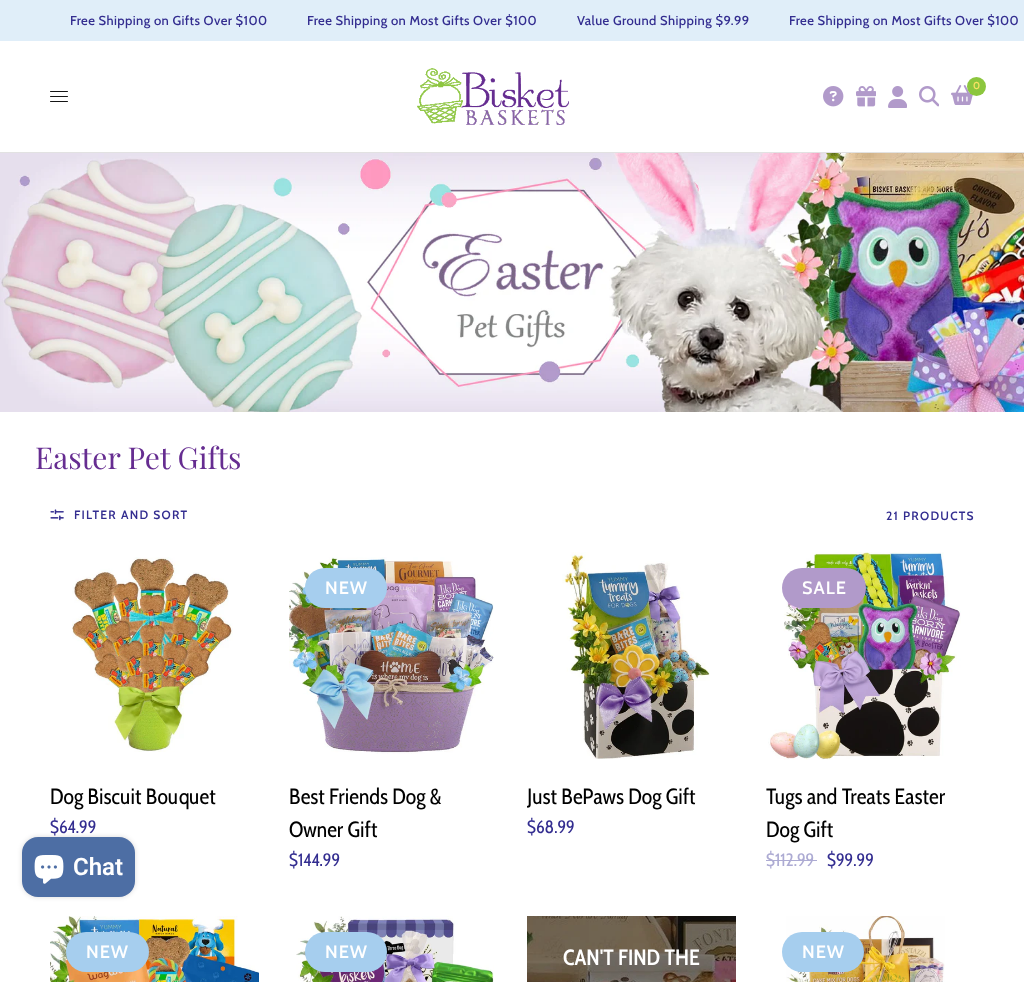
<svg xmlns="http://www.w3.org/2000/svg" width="1024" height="982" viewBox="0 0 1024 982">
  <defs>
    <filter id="blur1" x="-50%" y="-200%" width="200%" height="500%"><feGaussianBlur stdDeviation="2.5"/></filter>
  </defs>
  <rect width="100%" height="100%" fill="#ffffff"/>
  <rect x="0" y="0" width="1024" height="41" fill="#e0eef9"/>
  <text x="70" y="25" font-family="Cabin" font-size="13" font-weight="500" letter-spacing="0.4" fill="#332d90">Free Shipping on Gifts Over $100</text>
  <text x="307" y="25" font-family="Cabin" font-size="13" font-weight="500" letter-spacing="0.4" fill="#332d90">Free Shipping on Most Gifts Over $100</text>
  <text x="577" y="25" font-family="Cabin" font-size="13" font-weight="500" letter-spacing="0.4" fill="#332d90">Value Ground Shipping $9.99</text>
  <text x="789" y="25" font-family="Cabin" font-size="13" font-weight="500" letter-spacing="0.4" fill="#332d90">Free Shipping on Most Gifts Over $100</text>
  <rect x="0" y="152" width="1024" height="1" fill="#e2e2e2"/>
  <image x="417" y="68" width="152" height="57" href="img1.png"/>
  <image x="823" y="86" width="21" height="21" href="img2.png"/>
  <image x="856" y="86" width="20" height="21" href="img3.png"/>
  <image x="888" y="86" width="19" height="22" href="img4.png"/>
  <image x="919" y="86" width="20" height="21" href="img5.png"/>
  <image x="951" y="85" width="23" height="20" href="img6.png"/>
  <circle cx="976.5" cy="86.5" r="9.5" fill="#8cc63e"/>
  <text x="973" y="89" font-family="Cabin" font-size="10" font-weight="600" fill="#fae263">0</text>
  <rect x="50" y="91" width="18" height="1" rx="0.5" fill="#151515"/>
  <rect x="50" y="96" width="18" height="1" rx="0.5" fill="#151515"/>
  <rect x="50" y="101" width="18" height="1" rx="0.5" fill="#151515"/>
  <image x="0" y="153" width="1024" height="259" href="img7.png"/>
  <text x="35" y="469" font-family="Playfair Display" font-size="30" fill="#662d91">Easter Pet Gifts</text>
  <image x="50" y="509" width="14" height="12" href="img8.png"/>
  <text x="74" y="519" font-family="Cabin" font-size="12" font-weight="600" letter-spacing="1.25" fill="#332d90">FILTER AND SORT</text>
  <text x="886" y="520" font-family="Cabin" font-size="12" font-weight="600" letter-spacing="1.25" fill="#332d90">21 PRODUCTS</text>
  <image x="72" y="557" width="161" height="195" href="img9.png"/>
  <text x="50" y="804" font-family="Cabin Condensed" font-size="22" fill="#000000">Dog Biscuit Bouquet</text>
  <text x="50" y="833" font-family="Cabin Condensed" font-size="18" fill="#332d90">$64.99</text>
  <image x="289" y="557" width="205" height="197" href="img10.png"/>
  <rect x="305" y="568" width="82" height="40" rx="20" fill="#a6ceee"/>
  <text x="325" y="594" font-family="Cabin" font-size="18" font-weight="600" letter-spacing="1" fill="#ffffff">NEW</text>
  <text x="289" y="804" font-family="Cabin Condensed" font-size="22" fill="#000000">Best Friends Dog &amp;</text>
  <text x="289" y="837" font-family="Cabin Condensed" font-size="22" fill="#000000">Owner Gift</text>
  <text x="289" y="866" font-family="Cabin Condensed" font-size="18" fill="#332d90">$144.99</text>
  <image x="562" y="552" width="148" height="207" href="img11.png"/>
  <text x="527" y="804" font-family="Cabin Condensed" font-size="22" fill="#000000">Just BePaws Dog Gift</text>
  <text x="527" y="833" font-family="Cabin Condensed" font-size="18" fill="#332d90">$68.99</text>
  <image x="768" y="552" width="193" height="208" href="img12.png"/>
  <rect x="782" y="568" width="84" height="40" rx="20" fill="#b19aca"/>
  <text x="802" y="594" font-family="Cabin" font-size="18" font-weight="600" letter-spacing="1" fill="#ffffff">SALE</text>
  <text x="766" y="804" font-family="Cabin Condensed" font-size="22" fill="#000000">Tugs and Treats Easter</text>
  <text x="766" y="837" font-family="Cabin Condensed" font-size="22" fill="#000000">Dog Gift</text>
  <text x="766" y="866" font-family="Cabin Condensed" font-size="18" fill="#adabd3">$112.99</text>
  <rect x="766" y="860" width="51" height="1" fill="#adabd3"/>
  <text x="827" y="866" font-family="Cabin Condensed" font-size="18" fill="#332d90">$99.99</text>
  <image x="50" y="916" width="209" height="66" href="img13.png"/>
  <rect x="66" y="932" width="83" height="40" rx="20" fill="#a6ceee"/>
  <text x="86" y="958" font-family="Cabin" font-size="18" font-weight="600" letter-spacing="1" fill="#ffffff">NEW</text>
  <image x="296" y="916" width="198" height="66" href="img14.png"/>
  <rect x="305" y="932" width="82" height="40" rx="20" fill="#a6ceee"/>
  <text x="325" y="958" font-family="Cabin" font-size="18" font-weight="600" letter-spacing="1" fill="#ffffff">NEW</text>
  <image x="527" y="916" width="209" height="66" href="img15.png"/>
  <text x="563" y="965" font-family="Cabin Condensed" font-size="22" font-weight="600" fill="#ffffff">CAN'T FIND THE</text>
  <image x="786" y="916" width="159" height="66" href="img16.png"/>
  <rect x="782" y="932" width="82" height="40" rx="20" fill="#a6ceee"/>
  <text x="802" y="958" font-family="Cabin" font-size="18" font-weight="600" letter-spacing="1" fill="#ffffff">NEW</text>
  <rect x="22" y="837" width="113" height="60" rx="16" fill="#000000" fill-opacity="0.15" filter="url(#blur1)"/>
  <rect x="22" y="837" width="113" height="60" rx="16" fill="#4d6ea4"/>
  <image x="34" y="855" width="30" height="29" href="img17.png"/>
  <text x="73" y="875" font-family="Roboto" font-size="24" font-weight="600" fill="#ffffff">Chat</text>
</svg>
